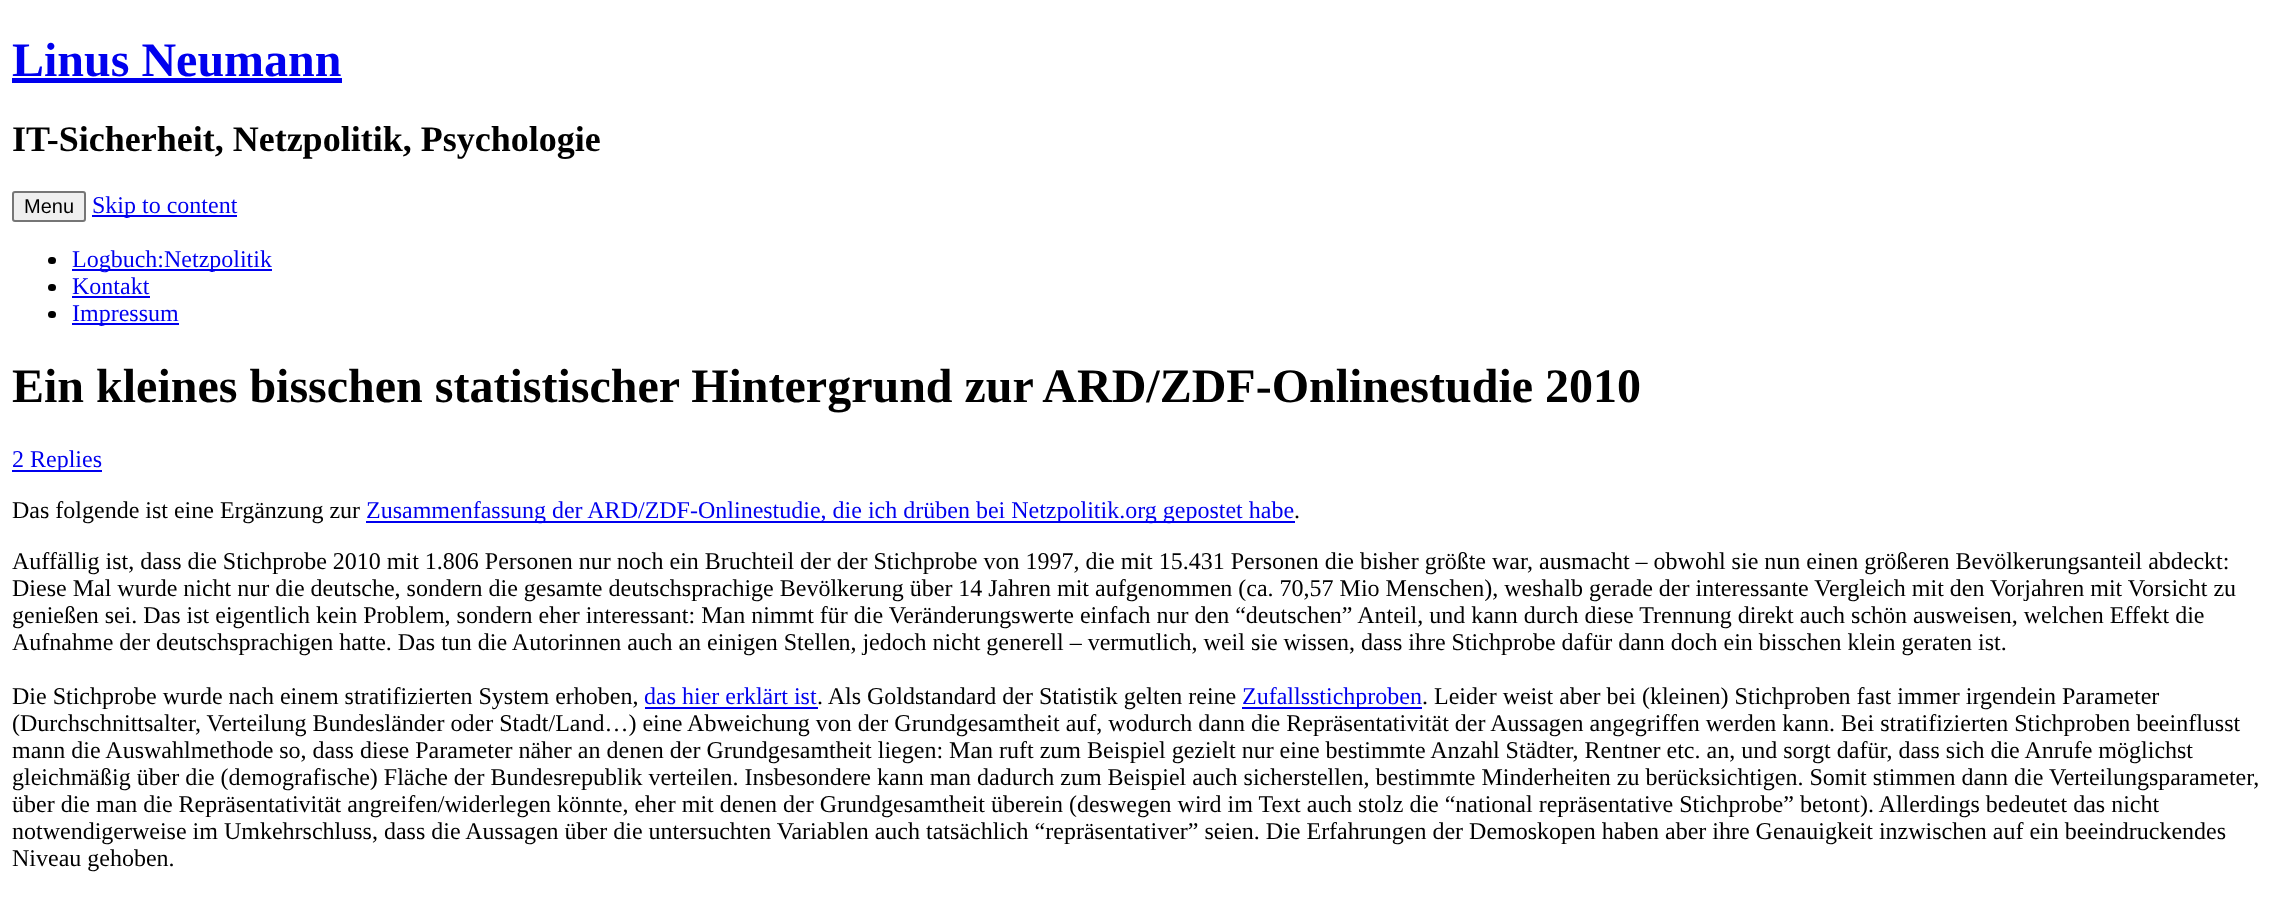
<svg xmlns="http://www.w3.org/2000/svg" width="2284" height="902" viewBox="0 0 2284 902">
  <rect width="100%" height="100%" fill="#ffffff"/>
  <text x="12" y="76" font-family="Liberation Serif" font-size="48" font-weight="bold" fill="#0000ee">Linus Neumann</text>
  <rect x="12" y="78" width="330" height="5" fill="#0000ee"/>
  <text x="12" y="151" font-family="Liberation Serif" font-size="36" font-weight="bold" fill="#000000">IT-Sicherheit, Netzpolitik, Psychologie</text>
  <rect x="13" y="192" width="72" height="29" rx="2" fill="#efefef" stroke="#767676" stroke-width="2"/>
  <text x="24" y="213" font-family="Liberation Sans" font-size="20" fill="#000000">Menu</text>
  <rect x="92" y="215" width="145" height="2" fill="#0000ee"/>
  <text x="92" y="213" font-family="Liberation Serif" font-size="24" fill="#0000ee">Skip to content</text>
  <rect x="48" y="257" width="8" height="7" rx="3.5" fill="#000000"/>
  <rect x="72" y="269" width="200" height="2" fill="#0000ee"/>
  <text x="72" y="267" font-family="Liberation Serif" font-size="24" fill="#0000ee">Logbuch:Netzpolitik</text>
  <rect x="48" y="284" width="8" height="7" rx="3.5" fill="#000000"/>
  <text x="72" y="294" font-family="Liberation Serif" font-size="24" fill="#0000ee">Kontakt</text>
  <rect x="72" y="296" width="78" height="2" fill="#0000ee"/>
  <rect x="48" y="311" width="8" height="7" rx="3.5" fill="#000000"/>
  <rect x="72" y="323" width="107" height="2" fill="#0000ee"/>
  <text x="72" y="321" font-family="Liberation Serif" font-size="24" fill="#0000ee">Impressum</text>
  <text x="12" y="402" font-family="Liberation Serif" font-size="48" font-weight="bold" fill="#000000">Ein kleines bisschen statistischer Hintergrund zur ARD/ZDF-Onlinestudie 2010</text>
  <rect x="12" y="470" width="90" height="2" fill="#0000ee"/>
  <text x="12" y="467" font-family="Liberation Serif" font-size="24" fill="#0000ee">2 Replies</text>
  <text x="12" y="518" font-family="Liberation Serif" font-size="24" fill="#000000">Das folgende ist eine Ergänzung zur</text>
  <rect x="366" y="521" width="929" height="2" fill="#0000ee"/>
  <text x="366" y="518" font-family="Liberation Serif" font-size="24" fill="#0000ee">Zusammenfassung der ARD/ZDF-Onlinestudie, die ich drüben bei Netzpolitik.org gepostet habe</text>
  <text x="1294" y="518" font-family="Liberation Serif" font-size="24" fill="#000000">.</text>
  <text x="12" y="569" font-family="Liberation Serif" font-size="24" fill="#000000">Auffällig ist, dass die Stichprobe 2010 mit 1.806 Personen nur noch ein Bruchteil der der Stichprobe von 1997, die mit 15.431 Personen die bisher größte war, ausmacht – obwohl sie nun einen größeren Bevölkerungsanteil abdeckt:</text>
  <text x="12" y="596" font-family="Liberation Serif" font-size="24" fill="#000000">Diese Mal wurde nicht nur die deutsche, sondern die gesamte deutschsprachige Bevölkerung über 14 Jahren mit aufgenommen (ca. 70,57 Mio Menschen), weshalb gerade der interessante Vergleich mit den Vorjahren mit Vorsicht zu</text>
  <text x="12" y="623" font-family="Liberation Serif" font-size="24" fill="#000000">genießen sei. Das ist eigentlich kein Problem, sondern eher interessant: Man nimmt für die Veränderungswerte einfach nur den “deutschen” Anteil, und kann durch diese Trennung direkt auch schön ausweisen, welchen Effekt die</text>
  <text x="12" y="650" font-family="Liberation Serif" font-size="24" fill="#000000">Aufnahme der deutschsprachigen hatte. Das tun die Autorinnen auch an einigen Stellen, jedoch nicht generell – vermutlich, weil sie wissen, dass ihre Stichprobe dafür dann doch ein bisschen klein geraten ist.</text>
  <text x="12" y="704" font-family="Liberation Serif" font-size="24" fill="#000000">Die Stichprobe wurde nach einem stratifizierten System erhoben,</text>
  <text x="644" y="704" font-family="Liberation Serif" font-size="24" fill="#0000ee">das hier erklärt ist</text>
  <rect x="645" y="707" width="173" height="2" fill="#0000ee"/>
  <text x="817" y="704" font-family="Liberation Serif" font-size="24" fill="#000000">. Als Goldstandard der Statistik gelten reine</text>
  <rect x="1242" y="707" width="180" height="2" fill="#0000ee"/>
  <text x="1242" y="704" font-family="Liberation Serif" font-size="24" fill="#0000ee">Zufallsstichproben</text>
  <text x="1422" y="704" font-family="Liberation Serif" font-size="24" fill="#000000">. Leider weist aber bei (kleinen) Stichproben fast immer irgendein Parameter</text>
  <text x="12" y="731" font-family="Liberation Serif" font-size="24" fill="#000000">(Durchschnittsalter, Verteilung Bundesländer oder Stadt/Land…) eine Abweichung von der Grundgesamtheit auf, wodurch dann die Repräsentativität der Aussagen angegriffen werden kann. Bei stratifizierten Stichproben beeinflusst</text>
  <text x="12" y="758" font-family="Liberation Serif" font-size="24" fill="#000000">mann die Auswahlmethode so, dass diese Parameter näher an denen der Grundgesamtheit liegen: Man ruft zum Beispiel gezielt nur eine bestimmte Anzahl Städter, Rentner etc. an, und sorgt dafür, dass sich die Anrufe möglichst</text>
  <text x="12" y="785" font-family="Liberation Serif" font-size="24" fill="#000000">gleichmäßig über die (demografische) Fläche der Bundesrepublik verteilen. Insbesondere kann man dadurch zum Beispiel auch sicherstellen, bestimmte Minderheiten zu berücksichtigen. Somit stimmen dann die Verteilungsparameter,</text>
  <text x="12" y="812" font-family="Liberation Serif" font-size="24" fill="#000000">über die man die Repräsentativität angreifen/widerlegen könnte, eher mit denen der Grundgesamtheit überein (deswegen wird im Text auch stolz die “national repräsentative Stichprobe” betont). Allerdings bedeutet das nicht</text>
  <text x="12" y="839" font-family="Liberation Serif" font-size="24" fill="#000000">notwendigerweise im Umkehrschluss, dass die Aussagen über die untersuchten Variablen auch tatsächlich “repräsentativer” seien. Die Erfahrungen der Demoskopen haben aber ihre Genauigkeit inzwischen auf ein beeindruckendes</text>
  <text x="12" y="866" font-family="Liberation Serif" font-size="24" fill="#000000">Niveau gehoben.</text>
</svg>
